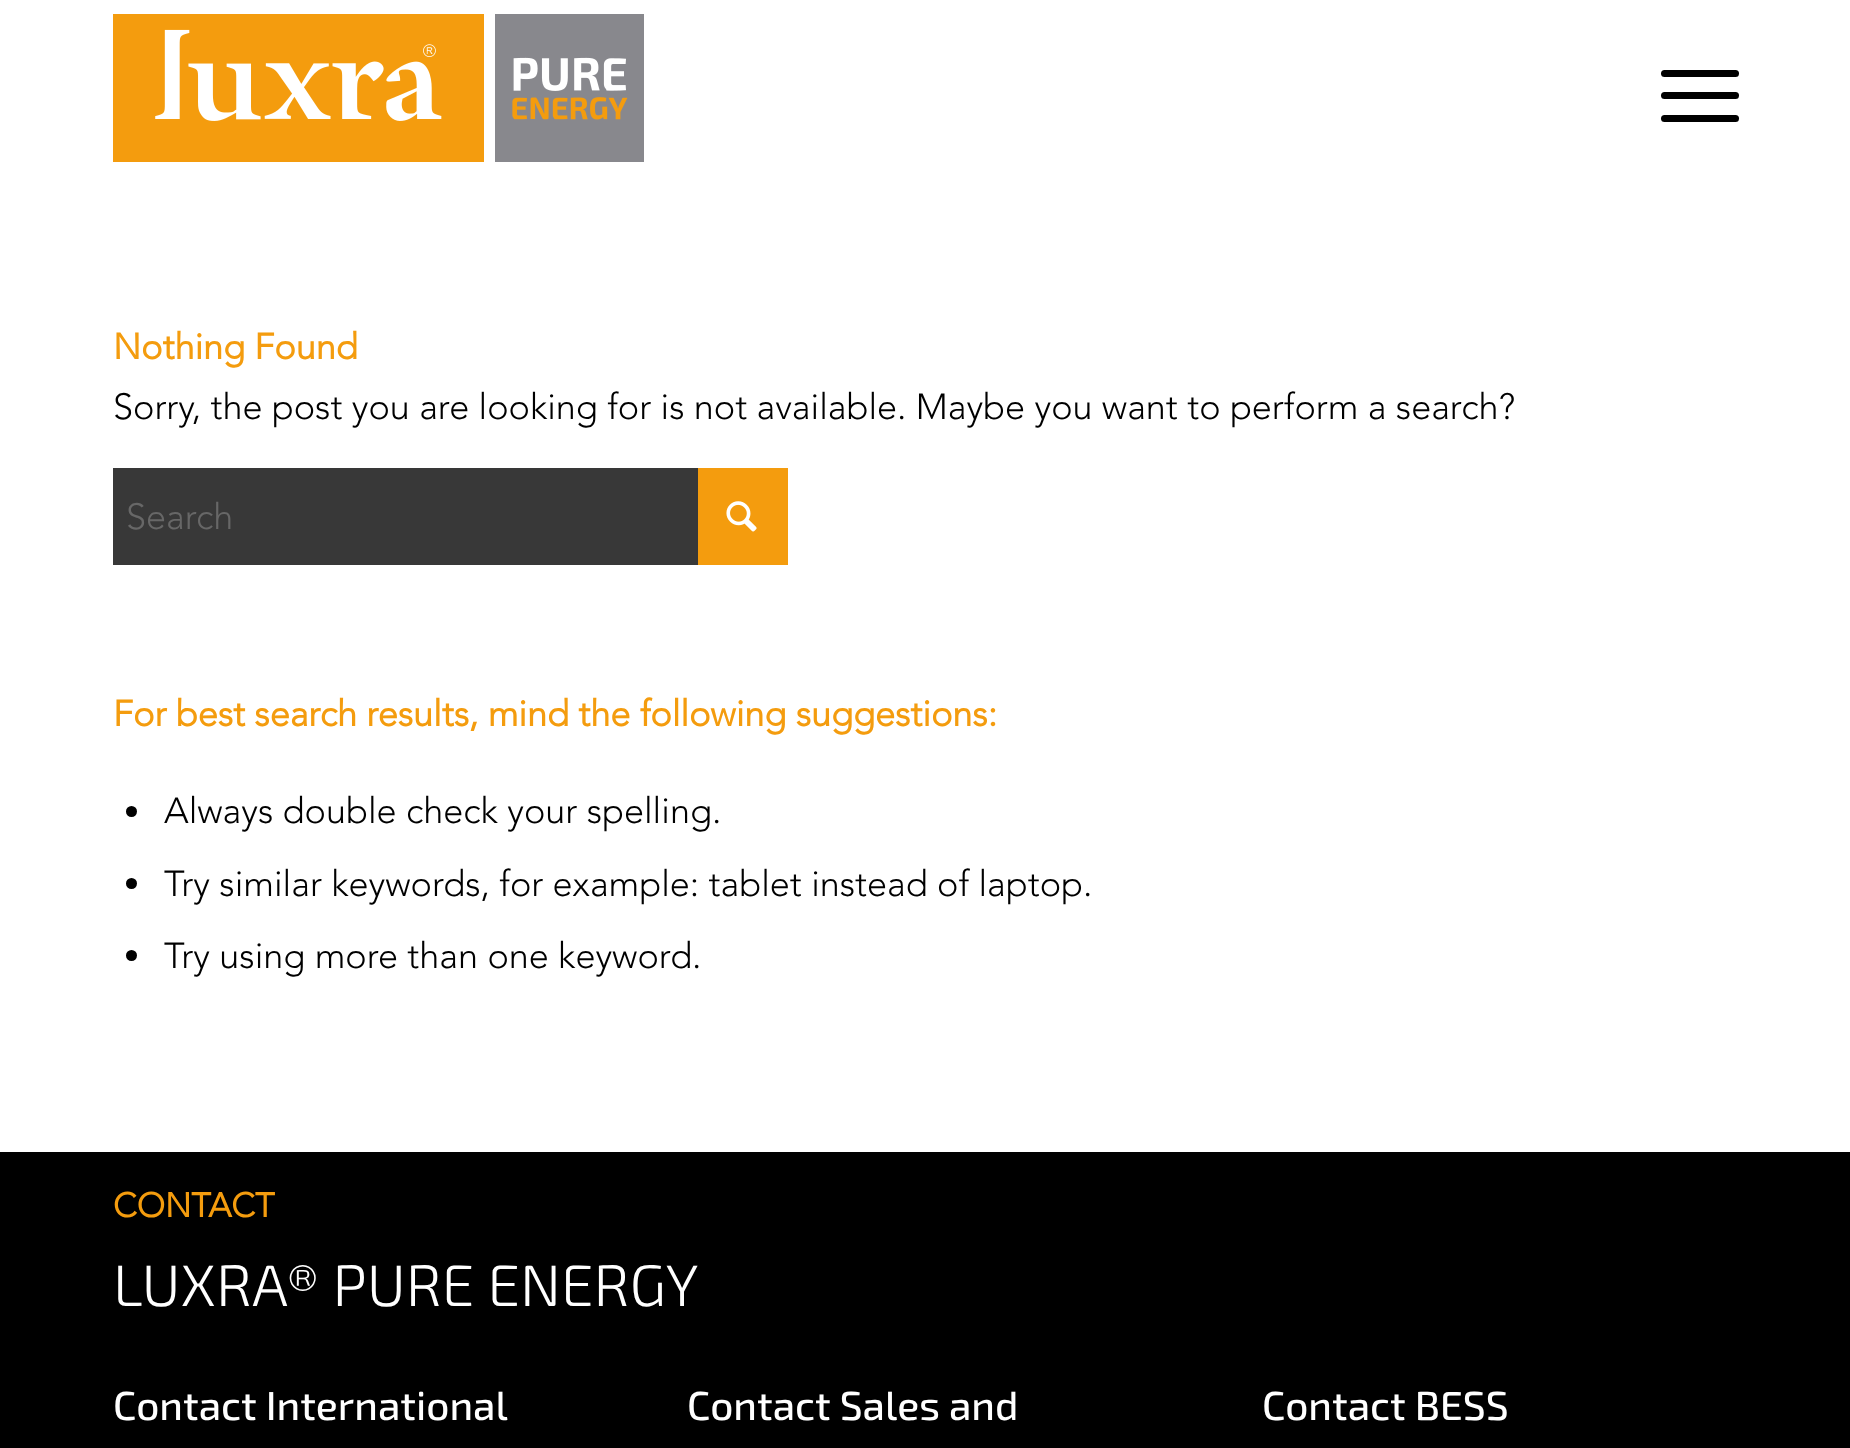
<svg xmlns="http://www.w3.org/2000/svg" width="1850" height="1448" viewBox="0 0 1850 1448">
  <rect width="100%" height="100%" fill="#ffffff"/>
  <image x="113" y="14" width="531" height="148" href="img1.png"/>
  <rect x="1661" y="92" width="78" height="7" rx="3.5" fill="#000000"/>
  <rect x="1661" y="70" width="78" height="7" rx="3.5" fill="#000000"/>
  <rect x="1661" y="115" width="78" height="7" rx="3.5" fill="#000000"/>
  <text x="113" y="359" font-family="Avenir" font-size="36" font-weight="bold" fill="#f49c0e">Nothing Found</text>
  <text x="113" y="419" font-family="Avenir" font-size="36" font-weight="300" fill="#000000">Sorry, the post you are looking for is not available. Maybe you want to perform a search?</text>
  <rect x="113" y="468" width="585" height="97" fill="#383838"/>
  <text x="126" y="529" font-family="Avenir" font-size="36" font-weight="300" fill="#676767">Search</text>
  <rect x="698" y="468" width="90" height="97" fill="#f49c0e"/>
  <image x="726" y="501" width="31" height="31" href="img2.png"/>
  <text x="113" y="726" font-family="Avenir" font-size="36" font-weight="bold" fill="#f49c0e">For best search results, mind the following suggestions:</text>
  <circle cx="131.5" cy="811.5" r="5.5" fill="#000000"/>
  <text x="164" y="823" font-family="Avenir" font-size="36" font-weight="300" fill="#000000">Always double check your spelling.</text>
  <circle cx="131.5" cy="883.5" r="5.5" fill="#000000"/>
  <text x="164" y="896" font-family="Avenir" font-size="36" font-weight="300" fill="#000000">Try similar keywords, for example: tablet instead of laptop.</text>
  <circle cx="131.5" cy="955.5" r="5.5" fill="#000000"/>
  <text x="164" y="968" font-family="Avenir" font-size="36" font-weight="300" fill="#000000">Try using more than one keyword.</text>
  <rect x="0" y="1152" width="1850" height="296" fill="#000000"/>
  <text x="113" y="1217" font-family="Avenir" font-size="33.75" font-weight="bold" fill="#f49c0e">CONTACT</text>
  <text x="113" y="1306" font-family="'Exo 2'" font-size="58.5" font-weight="300" fill="#ffffff">LUXRA® PURE ENERGY</text>
  <text x="113" y="1420" font-family="'Exo 2'" font-size="40.5" font-weight="500" fill="#ffffff">Contact International</text>
  <text x="687" y="1420" font-family="'Exo 2'" font-size="40.5" font-weight="500" fill="#ffffff">Contact Sales and</text>
  <text x="1262" y="1420" font-family="'Exo 2'" font-size="40.5" font-weight="500" fill="#ffffff">Contact BESS</text>
</svg>
